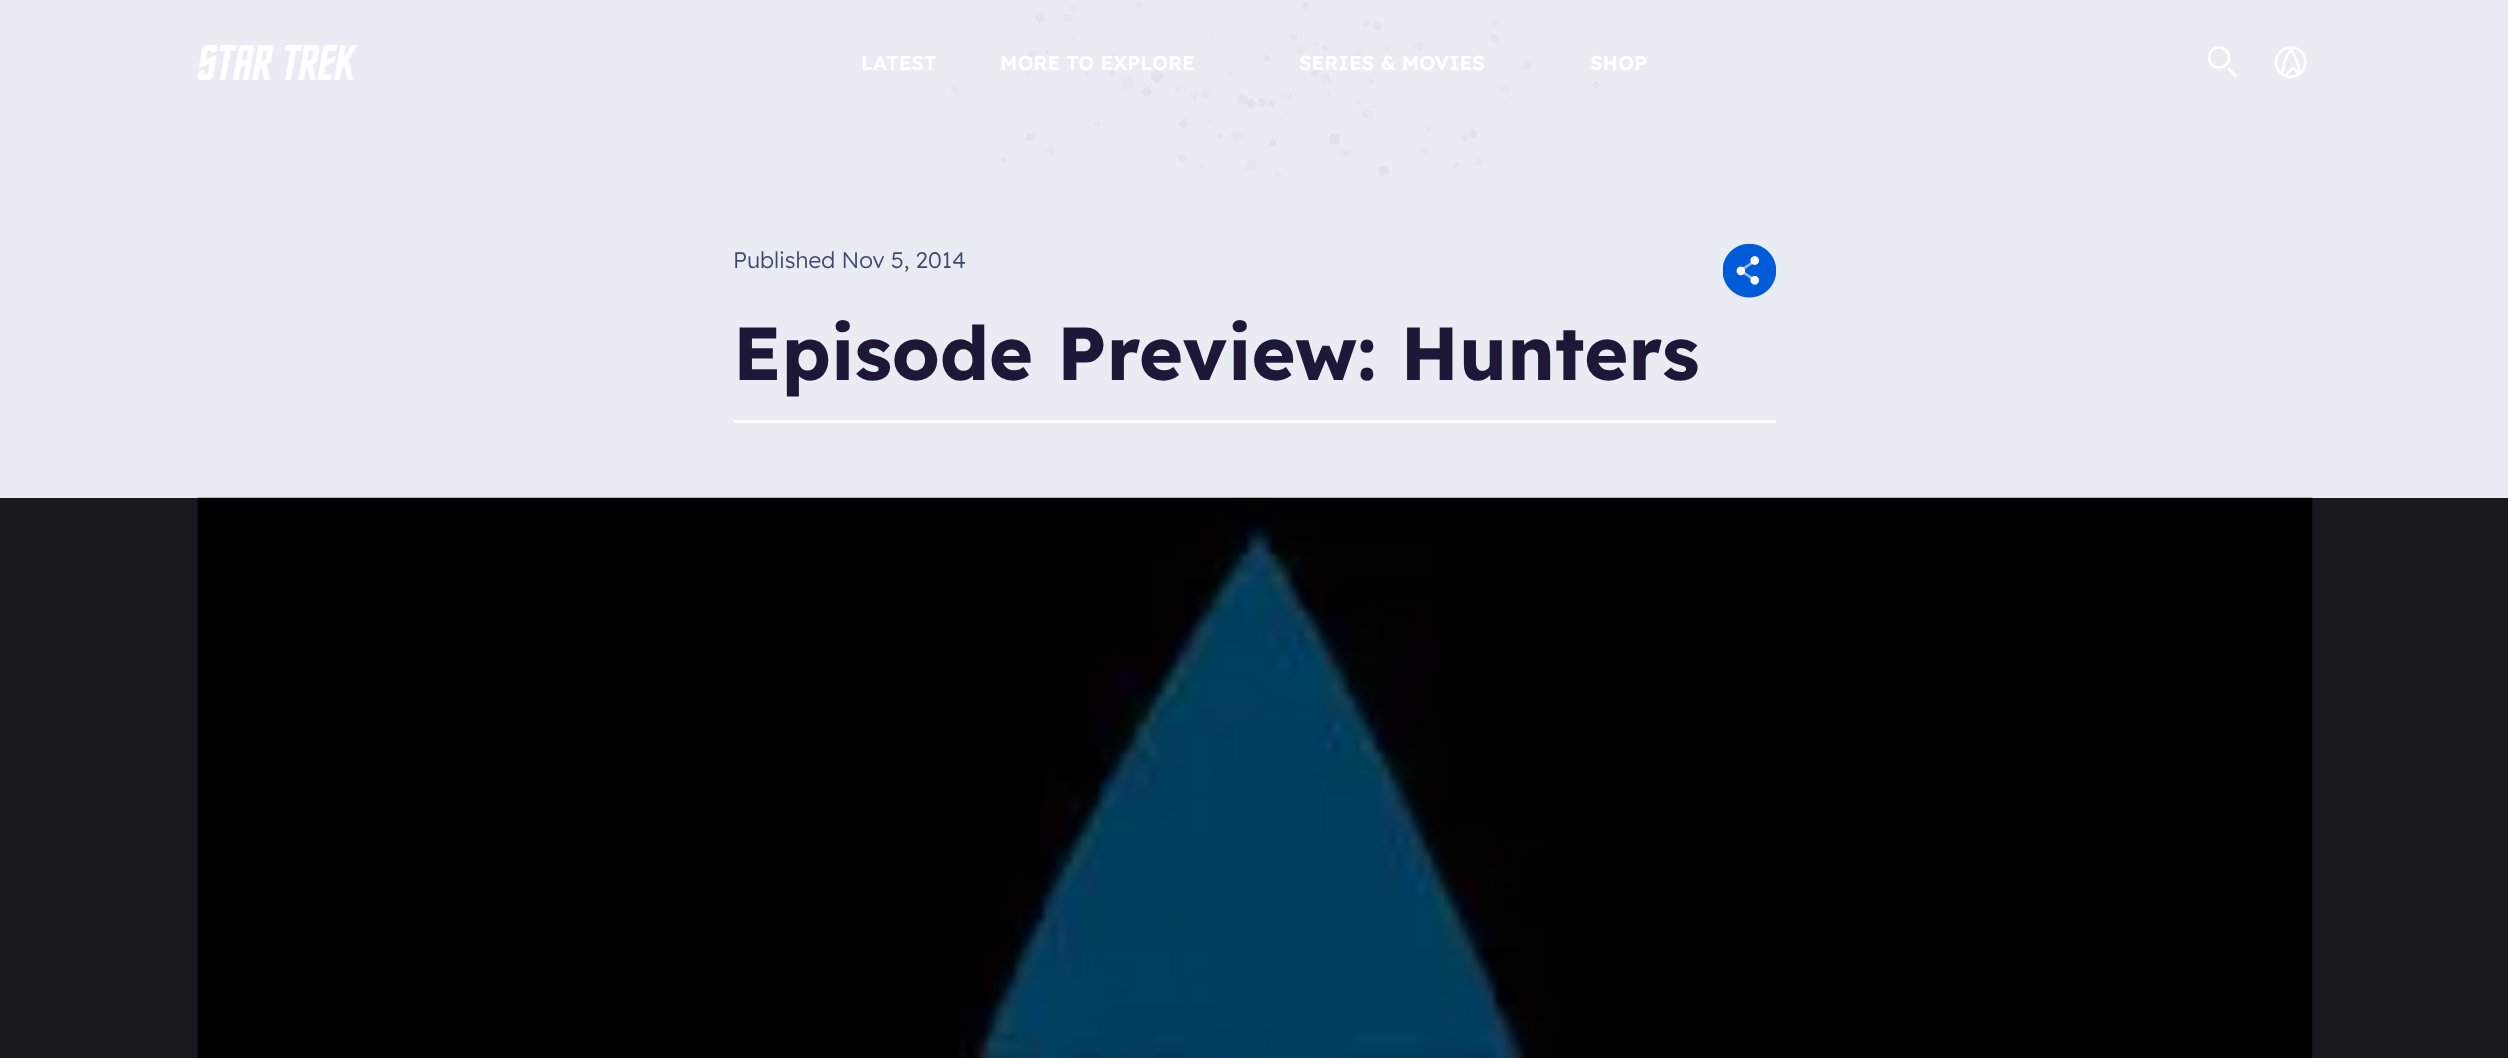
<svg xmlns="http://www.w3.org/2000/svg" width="2508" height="1058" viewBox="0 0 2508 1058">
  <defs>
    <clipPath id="clip1"><rect x="2208" y="46" width="31" height="33"/></clipPath>
  </defs>
  <rect width="100%" height="100%" fill="#e9ecf3"/>
  <image x="951" y="1" width="649" height="176" href="img1.png"/>
  <image x="197" y="45" width="161" height="35" href="img2.png"/>
  <text x="861" y="70" font-family="Lexend" font-size="20" font-weight="600" fill="#ffffff">LATEST</text>
  <text x="1000" y="70" font-family="Lexend" font-size="20" font-weight="600" fill="#ffffff">MORE TO EXPLORE</text>
  <text x="1299" y="70" font-family="Lexend" font-size="20" font-weight="600" fill="#ffffff">SERIES &amp; MOVIES</text>
  <text x="1590" y="70" font-family="Lexend" font-size="20" font-weight="600" fill="#ffffff">SHOP</text>
  <path d="M2236 76L2229 69" fill="none" stroke="#ffffff" stroke-width="2.5" stroke-linecap="round"/>
  <g clip-path="url(#clip1)">
    <circle cx="2219" cy="57.5" r="10" fill="none" stroke="#ffffff" stroke-width="2.5"/>
  </g>
  <image x="2274" y="46" width="33" height="33" href="img3.png"/>
  <text x="733" y="268" font-family="Lexend" font-size="22.5" font-weight="300" fill="#3d4a6c">Published Nov 5, 2014</text>
  <image x="1723" y="244" width="53" height="54" href="img4.png"/>
  <text x="733" y="380" font-family="Lexend" font-size="75" font-weight="bold" fill="#1d1837">Episode Preview: Hunters</text>
  <rect x="734" y="420" width="1042" height="3" fill="#ffffff"/>
  <rect x="0" y="498" width="2508" height="560" fill="#19181f"/>
  <image x="197" y="497" width="2116" height="561" href="img5.png"/>
</svg>
